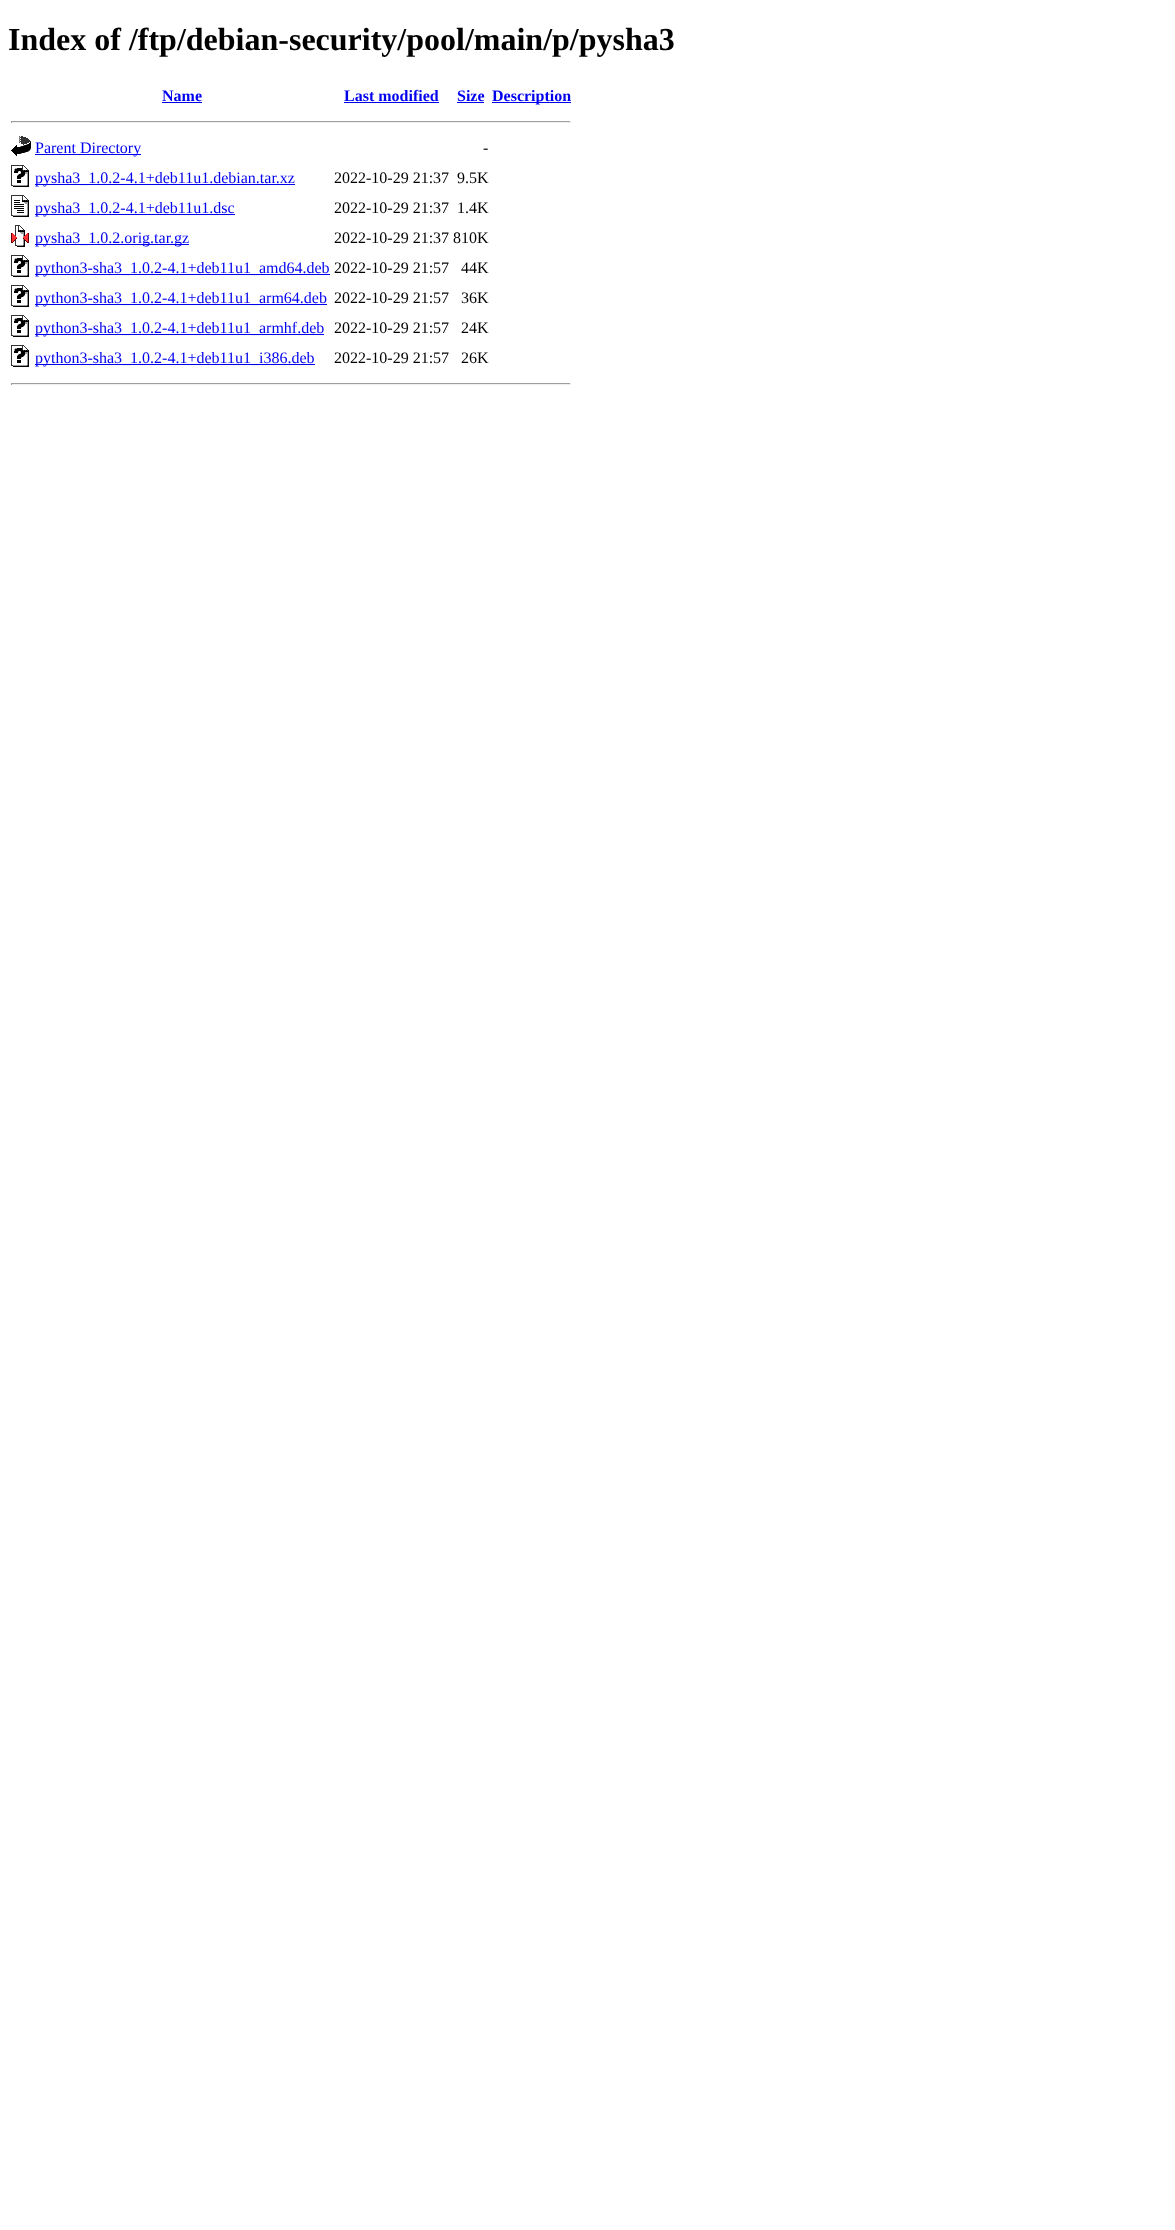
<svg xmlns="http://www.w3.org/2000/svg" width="1175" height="2230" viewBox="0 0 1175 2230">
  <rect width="100%" height="100%" fill="#ffffff"/>
  <text x="8" y="50" font-family="Liberation Serif" font-size="32" font-weight="bold" fill="#000000">Index of /ftp/debian-security/pool/main/p/pysha3</text>
  <text x="162" y="101" font-family="Liberation Serif" font-size="16" font-weight="bold" fill="#0000ee">Name</text>
  <rect x="162" y="102" width="40" height="1" fill="#0000ee"/>
  <text x="344" y="101" font-family="Liberation Serif" font-size="16" font-weight="bold" fill="#0000ee">Last modified</text>
  <rect x="344" y="102" width="95" height="1" fill="#0000ee"/>
  <text x="457" y="101" font-family="Liberation Serif" font-size="16" font-weight="bold" fill="#0000ee">Size</text>
  <rect x="457" y="102" width="27" height="1" fill="#0000ee"/>
  <rect x="492" y="102" width="79" height="1" fill="#0000ee"/>
  <text x="492" y="101" font-family="Liberation Serif" font-size="16" font-weight="bold" fill="#0000ee">Description</text>
  <rect x="11" y="121" width="560" height="1" fill="#9f9f9f"/>
  <rect x="570" y="121" width="1" height="2" fill="#eeeeee"/>
  <rect x="11" y="122" width="560" height="1" fill="#eeeeee"/>
  <rect x="11" y="121" width="1" height="2" fill="#9f9f9f"/>
  <image x="11" y="136" width="20" height="20" href="img1.png"/>
  <rect x="35" y="154" width="106" height="1" fill="#0000ee"/>
  <text x="35" y="153" font-family="Liberation Serif" font-size="16" fill="#0000ee">Parent Directory</text>
  <text x="483" y="153" font-family="Liberation Serif" font-size="16" fill="#000000">-</text>
  <image x="11" y="165" width="18" height="22" href="img2.png"/>
  <rect x="35" y="184" width="260" height="1" fill="#0000ee"/>
  <text x="35" y="183" font-family="Liberation Serif" font-size="16" fill="#0000ee">pysha3_1.0.2-4.1+deb11u1.debian.tar.xz</text>
  <text x="334" y="183" font-family="Liberation Serif" font-size="16" fill="#000000">2022-10-29 21:37</text>
  <text x="457" y="183" font-family="Liberation Serif" font-size="16" fill="#000000">9.5K</text>
  <image x="11" y="195" width="18" height="22" href="img3.png"/>
  <rect x="35" y="214" width="200" height="1" fill="#0000ee"/>
  <text x="35" y="213" font-family="Liberation Serif" font-size="16" fill="#0000ee">pysha3_1.0.2-4.1+deb11u1.dsc</text>
  <text x="334" y="213" font-family="Liberation Serif" font-size="16" fill="#000000">2022-10-29 21:37</text>
  <text x="457" y="213" font-family="Liberation Serif" font-size="16" fill="#000000">1.4K</text>
  <image x="11" y="225" width="18" height="22" href="img4.png"/>
  <rect x="35" y="244" width="154" height="1" fill="#0000ee"/>
  <text x="35" y="243" font-family="Liberation Serif" font-size="16" fill="#0000ee">pysha3_1.0.2.orig.tar.gz</text>
  <text x="334" y="243" font-family="Liberation Serif" font-size="16" fill="#000000">2022-10-29 21:37 810K</text>
  <image x="11" y="255" width="18" height="22" href="img2.png"/>
  <rect x="35" y="274" width="295" height="1" fill="#0000ee"/>
  <text x="35" y="273" font-family="Liberation Serif" font-size="16" fill="#0000ee">python3-sha3_1.0.2-4.1+deb11u1_amd64.deb</text>
  <text x="334" y="273" font-family="Liberation Serif" font-size="16" fill="#000000">2022-10-29 21:57</text>
  <text x="461" y="273" font-family="Liberation Serif" font-size="16" fill="#000000">44K</text>
  <image x="11" y="285" width="18" height="22" href="img2.png"/>
  <rect x="35" y="304" width="292" height="1" fill="#0000ee"/>
  <text x="35" y="303" font-family="Liberation Serif" font-size="16" fill="#0000ee">python3-sha3_1.0.2-4.1+deb11u1_arm64.deb</text>
  <text x="334" y="303" font-family="Liberation Serif" font-size="16" fill="#000000">2022-10-29 21:57</text>
  <text x="461" y="303" font-family="Liberation Serif" font-size="16" fill="#000000">36K</text>
  <image x="11" y="315" width="18" height="22" href="img2.png"/>
  <rect x="35" y="334" width="289" height="1" fill="#0000ee"/>
  <text x="35" y="333" font-family="Liberation Serif" font-size="16" fill="#0000ee">python3-sha3_1.0.2-4.1+deb11u1_armhf.deb</text>
  <text x="334" y="333" font-family="Liberation Serif" font-size="16" fill="#000000">2022-10-29 21:57</text>
  <text x="461" y="333" font-family="Liberation Serif" font-size="16" fill="#000000">24K</text>
  <image x="11" y="345" width="18" height="22" href="img2.png"/>
  <rect x="35" y="364" width="280" height="1" fill="#0000ee"/>
  <text x="35" y="363" font-family="Liberation Serif" font-size="16" fill="#0000ee">python3-sha3_1.0.2-4.1+deb11u1_i386.deb</text>
  <text x="334" y="363" font-family="Liberation Serif" font-size="16" fill="#000000">2022-10-29 21:57</text>
  <text x="461" y="363" font-family="Liberation Serif" font-size="16" fill="#000000">26K</text>
  <rect x="11" y="383" width="560" height="1" fill="#9f9f9f"/>
  <rect x="570" y="383" width="1" height="2" fill="#eeeeee"/>
  <rect x="11" y="384" width="560" height="1" fill="#eeeeee"/>
  <rect x="11" y="383" width="1" height="2" fill="#9f9f9f"/>
</svg>
